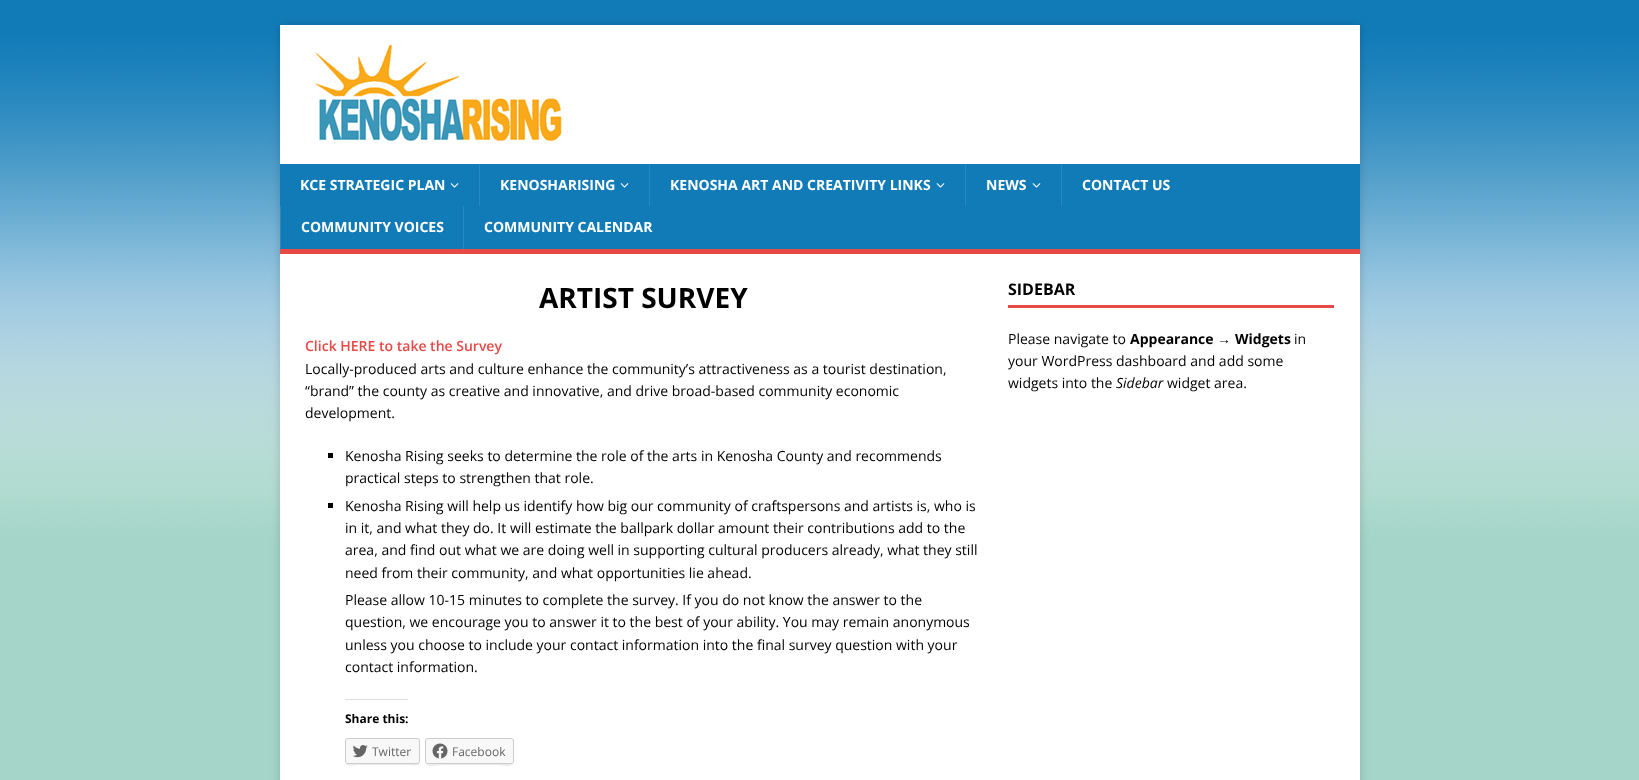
<svg xmlns="http://www.w3.org/2000/svg" width="1639" height="780" viewBox="0 0 1639 780">
  <defs>
    <filter id="blur1" x="-50%" y="-200%" width="200%" height="500%"><feGaussianBlur stdDeviation="5"/></filter>
  </defs>
  <rect width="100%" height="100%" fill="#ffffff"/>
  <image x="0" y="0" width="1639" height="780" href="img1.png"/>
  <rect x="280" y="25" width="1080" height="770" fill="#323232" fill-opacity="0.17" filter="url(#blur1)"/>
  <rect x="280" y="25" width="1080" height="139" fill="#ffffff"/>
  <image x="315" y="45" width="247" height="96" href="img2.png"/>
  <rect x="280" y="164" width="1080" height="85" fill="#117bb8"/>
  <rect x="280" y="249" width="1080" height="5" fill="#e64946"/>
  <text x="300" y="190" font-family="Open Sans" font-size="14" font-weight="bold" fill="#ffffff">KCE STRATEGIC PLAN</text>
  <image x="450" y="183" width="9" height="5" href="img3.png"/>
  <rect x="479" y="164" width="1" height="42" fill="#2988bf"/>
  <text x="500" y="190" font-family="Open Sans" font-size="14" font-weight="bold" fill="#ffffff">KENOSHARISING</text>
  <image x="620" y="183" width="9" height="5" href="img3.png"/>
  <rect x="649" y="164" width="1" height="42" fill="#2988bf"/>
  <text x="670" y="190" font-family="Open Sans" font-size="14" font-weight="bold" fill="#ffffff">KENOSHA ART AND CREATIVITY LINKS</text>
  <image x="936" y="183" width="9" height="5" href="img3.png"/>
  <rect x="965" y="164" width="1" height="42" fill="#2988bf"/>
  <text x="986" y="190" font-family="Open Sans" font-size="14" font-weight="bold" fill="#ffffff">NEWS</text>
  <image x="1032" y="183" width="9" height="5" href="img3.png"/>
  <rect x="1061" y="164" width="1" height="42" fill="#2988bf"/>
  <text x="1082" y="190" font-family="Open Sans" font-size="14" font-weight="bold" fill="#ffffff">CONTACT US</text>
  <rect x="280" y="206" width="1" height="43" fill="#2988bf"/>
  <text x="301" y="232" font-family="Open Sans" font-size="14" font-weight="bold" fill="#ffffff">COMMUNITY VOICES</text>
  <rect x="463" y="206" width="1" height="43" fill="#2988bf"/>
  <text x="484" y="232" font-family="Open Sans" font-size="14" font-weight="bold" fill="#ffffff">COMMUNITY CALENDAR</text>
  <rect x="280" y="254" width="1080" height="526" fill="#ffffff"/>
  <text x="539" y="308" font-family="Open Sans" font-size="28" font-weight="bold" fill="#000000">ARTIST SURVEY</text>
  <text x="305" y="351" font-family="Open Sans" font-size="14" font-weight="600" fill="#e64946">Click HERE to take the Survey</text>
  <text x="305" y="374" font-family="Open Sans" font-size="14" fill="#000000">Locally-produced arts and culture enhance the community’s attractiveness as a tourist destination,</text>
  <text x="305" y="396" font-family="Open Sans" font-size="14" fill="#000000">“brand” the county as creative and innovative, and drive broad-based community economic</text>
  <text x="305" y="418" font-family="Open Sans" font-size="14" fill="#000000">development.</text>
  <rect x="328" y="453" width="5" height="5" fill="#000000"/>
  <text x="345" y="461" font-family="Open Sans" font-size="14" fill="#000000">Kenosha Rising seeks to determine the role of the arts in Kenosha County and recommends</text>
  <text x="345" y="483" font-family="Open Sans" font-size="14" fill="#000000">practical steps to strengthen that role.</text>
  <rect x="328" y="503" width="5" height="5" fill="#000000"/>
  <text x="345" y="511" font-family="Open Sans" font-size="14" fill="#000000">Kenosha Rising will help us identify how big our community of craftspersons and artists is, who is</text>
  <text x="345" y="533" font-family="Open Sans" font-size="14" fill="#000000">in it, and what they do. It will estimate the ballpark dollar amount their contributions add to the</text>
  <text x="345" y="555" font-family="Open Sans" font-size="14" fill="#000000">area, and find out what we are doing well in supporting cultural producers already, what they still</text>
  <text x="345" y="578" font-family="Open Sans" font-size="14" fill="#000000">need from their community, and what opportunities lie ahead.</text>
  <text x="345" y="605" font-family="Open Sans" font-size="14" fill="#000000">Please allow 10-15 minutes to complete the survey. If you do not know the answer to the</text>
  <text x="345" y="627" font-family="Open Sans" font-size="14" fill="#000000">question, we encourage you to answer it to the best of your ability. You may remain anonymous</text>
  <text x="345" y="650" font-family="Open Sans" font-size="14" fill="#000000">unless you choose to include your contact information into the final survey question with your</text>
  <text x="345" y="672" font-family="Open Sans" font-size="14" fill="#000000">contact information.</text>
  <rect x="345" y="699" width="63" height="1" fill="#dddddd"/>
  <text x="345" y="723" font-family="Open Sans" font-size="12" font-weight="bold" fill="#000000">Share this:</text>
  <path d="M345 761C345 768 355 765 360 765H406C410 765 420 768 420 761C420 763 419 764 417 764H348C346 764 345 763 345 761Z" fill="#ebebeb"/>
  <rect x="345.5" y="738.5" width="74" height="25" rx="2.5" fill="#f8f8f8" stroke="#cccccc"/>
  <image x="352" y="745" width="16" height="13" href="img4.png"/>
  <text x="372" y="756" font-family="Open Sans" font-size="12" fill="#656565">Twitter</text>
  <path d="M425 761C425 769 438 765 442 765H497C501 765 514 769 514 761C514 763 513 764 511 764H428C426 764 425 763 425 761Z" fill="#ebebeb"/>
  <rect x="425.5" y="738.5" width="88" height="25" rx="2.5" fill="#f8f8f8" stroke="#cccccc"/>
  <image x="432" y="743" width="16" height="16" href="img5.png"/>
  <text x="452" y="756" font-family="Open Sans" font-size="12" fill="#656565">Facebook</text>
  <rect x="1008" y="305" width="326" height="3" fill="#e64946"/>
  <text x="1008" y="295" font-family="Open Sans" font-size="16" font-weight="bold" fill="#000000">SIDEBAR</text>
  <text x="1008" y="344" font-family="Open Sans" font-size="14" fill="#000000">Please navigate to</text>
  <text x="1130" y="344" font-family="Open Sans" font-size="14" font-weight="bold" fill="#000000">Appearance</text>
  <text x="1217" y="344" font-family="Liberation Sans" font-size="14" font-weight="bold" fill="#000000">→</text>
  <text x="1235" y="344" font-family="Open Sans" font-size="14" font-weight="bold" fill="#000000">Widgets</text>
  <text x="1294" y="344" font-family="Open Sans" font-size="14" fill="#000000">in</text>
  <text x="1008" y="366" font-family="Open Sans" font-size="14" fill="#000000">your WordPress dashboard and add some</text>
  <text x="1008" y="388" font-family="Open Sans" font-size="14" fill="#000000">widgets into the</text>
  <text x="1116" y="388" font-family="Open Sans" font-size="14" font-style="italic" fill="#000000">Sidebar</text>
  <text x="1167" y="388" font-family="Open Sans" font-size="14" fill="#000000">widget area.</text>
</svg>
